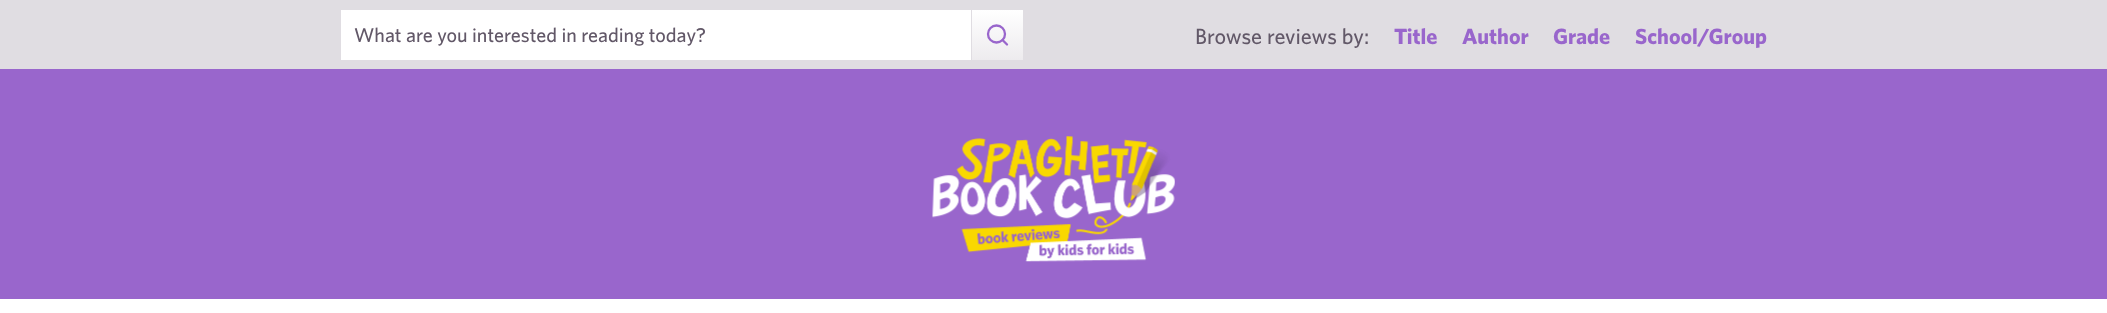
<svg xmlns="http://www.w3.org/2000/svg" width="2107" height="313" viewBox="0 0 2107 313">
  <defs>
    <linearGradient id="g1" gradientUnits="userSpaceOnUse" x1="973" y1="60" x2="973" y2="-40"><stop offset="0" stop-color="#edebee"/><stop offset="0.5" stop-color="#ffffff"/></linearGradient>
  </defs>
  <rect width="100%" height="100%" fill="#9966cc"/>
  <rect x="0" y="0" width="2107" height="69" fill="#e0dde2"/>
  <rect x="341" y="10" width="630" height="50" fill="#ffffff"/>
  <text x="354" y="42" font-family="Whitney" font-size="20" font-weight="500" fill="#625868">What are you interested in reading today?</text>
  <rect x="972" y="10" width="51" height="50" fill="url(#g1)"/>
  <circle cx="996.5" cy="34" r="8.5" fill="none" stroke="#9966cc" stroke-width="2.3"/>
  <path d="M1007 44.5L1002.5 40" fill="none" stroke="#9966cc" stroke-width="2.3" stroke-linecap="round" stroke-linejoin="round"/>
  <text x="1195" y="44" font-family="Whitney" font-size="22" font-weight="500" fill="#625868">Browse reviews by:</text>
  <text x="1394" y="44" font-family="Whitney" font-size="22" font-weight="bold" fill="#9966cc">Title</text>
  <text x="1462" y="44" font-family="Whitney" font-size="22" font-weight="bold" fill="#9966cc">Author</text>
  <text x="1553" y="44" font-family="Whitney" font-size="22" font-weight="bold" fill="#9966cc">Grade</text>
  <text x="1635" y="44" font-family="Whitney" font-size="22" font-weight="bold" fill="#9966cc">School/Group</text>
  <image x="932" y="136" width="243" height="126" href="img1.png"/>
  <rect x="0" y="299" width="2107" height="14" fill="#ffffff"/>
</svg>
